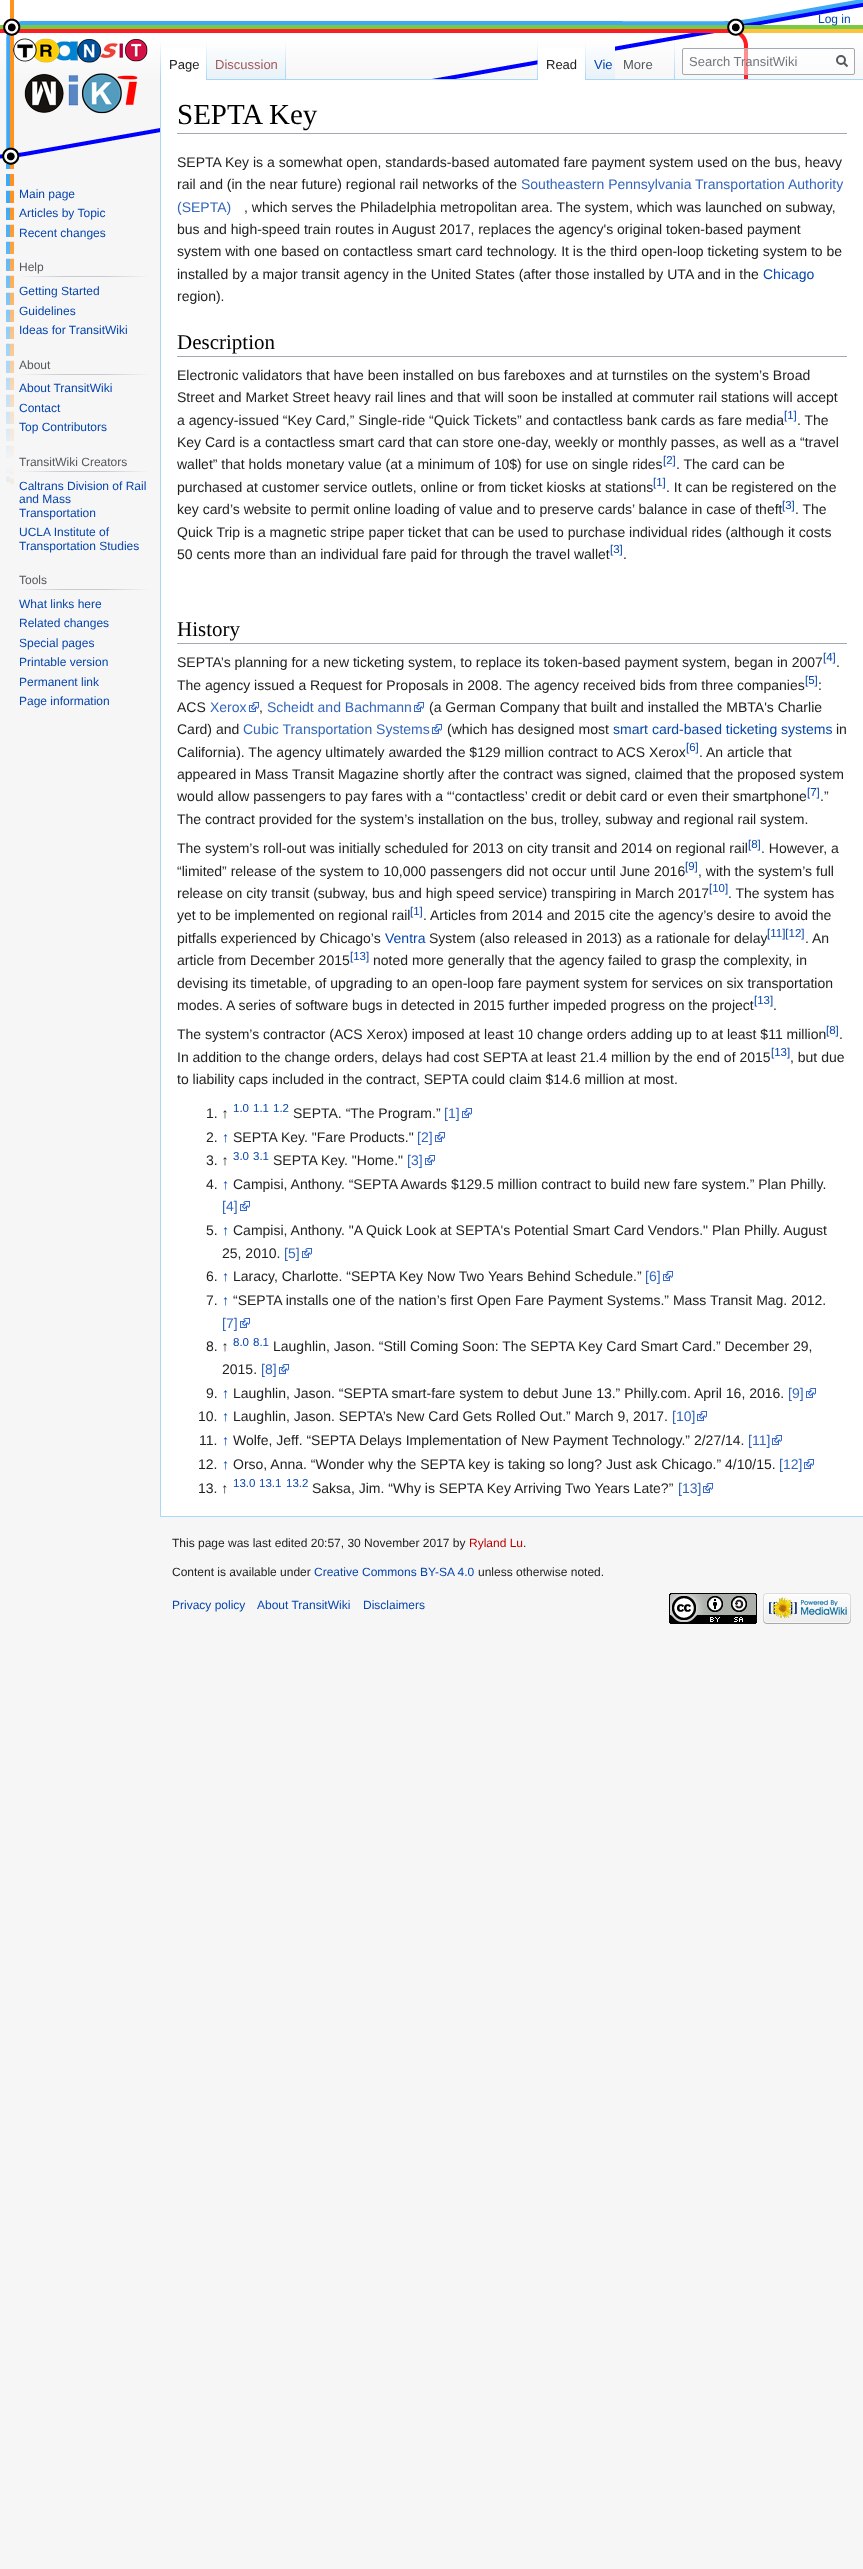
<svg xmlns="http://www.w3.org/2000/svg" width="863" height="2569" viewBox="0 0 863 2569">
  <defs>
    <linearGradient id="g1" gradientUnits="userSpaceOnUse" x1="161" y1="40" x2="161" y2="80"><stop offset="0" stop-color="#a7d7f9" stop-opacity="0"/><stop offset="1" stop-color="#a7d7f9"/></linearGradient>
    <linearGradient id="g2" gradientUnits="userSpaceOnUse" x1="207" y1="40" x2="207" y2="80"><stop offset="0" stop-color="#ffffff"/><stop offset="1" stop-color="#a7d7f9"/></linearGradient>
    <linearGradient id="g3" gradientUnits="userSpaceOnUse" x1="247" y1="80" x2="247" y2="40"><stop offset="0" stop-color="#77c1f6"/><stop offset="0.03" stop-color="#e8f2f8"/><stop offset="1" stop-color="#ffffff"/></linearGradient>
    <linearGradient id="g4" gradientUnits="userSpaceOnUse" x1="286" y1="40" x2="286" y2="80"><stop offset="0" stop-color="#a7d7f9" stop-opacity="0"/><stop offset="1" stop-color="#a7d7f9"/></linearGradient>
    <linearGradient id="g5" gradientUnits="userSpaceOnUse" x1="538" y1="40" x2="538" y2="80"><stop offset="0" stop-color="#a7d7f9" stop-opacity="0"/><stop offset="1" stop-color="#a7d7f9"/></linearGradient>
    <linearGradient id="g6" gradientUnits="userSpaceOnUse" x1="586" y1="40" x2="586" y2="80"><stop offset="0" stop-color="#ffffff"/><stop offset="1" stop-color="#a7d7f9"/></linearGradient>
    <linearGradient id="g7" gradientUnits="userSpaceOnUse" x1="601" y1="80" x2="601" y2="40"><stop offset="0" stop-color="#77c1f6"/><stop offset="0.03" stop-color="#e8f2f8"/><stop offset="1" stop-color="#ffffff"/></linearGradient>
    <linearGradient id="g8" gradientUnits="userSpaceOnUse" x1="675" y1="40" x2="675" y2="80"><stop offset="0" stop-color="#a7d7f9" stop-opacity="0"/><stop offset="1" stop-color="#a7d7f9"/></linearGradient>
    <linearGradient id="g9" gradientUnits="userSpaceOnUse" x1="19" y1="277" x2="150" y2="277"><stop offset="0" stop-color="#f6f6f6"/><stop offset="0.33" stop-color="#c8ccd1"/><stop offset="0.66" stop-color="#c8ccd1"/><stop offset="1" stop-color="#f6f6f6"/></linearGradient>
    <linearGradient id="g10" gradientUnits="userSpaceOnUse" x1="19" y1="375" x2="150" y2="375"><stop offset="0" stop-color="#f6f6f6"/><stop offset="0.33" stop-color="#c8ccd1"/><stop offset="0.66" stop-color="#c8ccd1"/><stop offset="1" stop-color="#f6f6f6"/></linearGradient>
    <linearGradient id="g11" gradientUnits="userSpaceOnUse" x1="19" y1="472" x2="150" y2="472"><stop offset="0" stop-color="#f6f6f6"/><stop offset="0.33" stop-color="#c8ccd1"/><stop offset="0.66" stop-color="#c8ccd1"/><stop offset="1" stop-color="#f6f6f6"/></linearGradient>
    <linearGradient id="g12" gradientUnits="userSpaceOnUse" x1="19" y1="590" x2="150" y2="590"><stop offset="0" stop-color="#f6f6f6"/><stop offset="0.33" stop-color="#c8ccd1"/><stop offset="0.66" stop-color="#c8ccd1"/><stop offset="1" stop-color="#f6f6f6"/></linearGradient>
  </defs>
  <rect width="100%" height="100%" fill="#f6f6f6"/>
  <image x="0" y="80" width="160" height="404" href="img1.png"/>
  <rect x="0" y="0" width="863" height="36" fill="#ffffff"/>
  <image x="0" y="0" width="863" height="80" href="img2.png"/>
  <text x="818" y="23" font-family="Liberation Sans" font-size="12" fill="#0645ad">Log in</text>
  <rect x="160" y="1516" width="703" height="1" fill="#a7d7f9"/>
  <rect x="160" y="79" width="1" height="1438" fill="#a7d7f9"/>
  <rect x="160" y="40" width="1" height="40" fill="url(#g1)"/>
  <rect x="161" y="48" width="45" height="32" fill="#ffffff"/>
  <rect x="206" y="40" width="1" height="40" fill="url(#g2)"/>
  <text x="169" y="69" font-family="Liberation Sans" font-size="13" fill="#202122">Page</text>
  <rect x="207" y="49" width="79" height="31" fill="url(#g3)"/>
  <rect x="285" y="40" width="1" height="40" fill="url(#g4)"/>
  <text x="215" y="69" font-family="Liberation Sans" font-size="13" fill="#a55858">Discussion</text>
  <rect x="286" y="79" width="577" height="1" fill="#a7d7f9"/>
  <rect x="537" y="40" width="1" height="40" fill="url(#g5)"/>
  <rect x="538" y="48" width="47" height="32" fill="#ffffff"/>
  <rect x="585" y="40" width="1" height="40" fill="url(#g6)"/>
  <text x="546" y="69" font-family="Liberation Sans" font-size="13" fill="#202122">Read</text>
  <rect x="586" y="46" width="29" height="33" fill="url(#g7)"/>
  <text x="594" y="69" font-family="Liberation Sans" font-size="13" fill="#0645ad">Vie</text>
  <rect x="674" y="40" width="1" height="40" fill="url(#g8)"/>
  <text x="623" y="69" font-family="Liberation Sans" font-size="13" fill="#54595d">More</text>
  <rect x="682.5" y="48.5" width="172" height="26" rx="1.5" fill="#ffffff" fill-opacity="0.5" stroke="#a2a9b1"/>
  <text x="689" y="66" font-family="Liberation Sans" font-size="13" fill="#72777d">Search TransitWiki</text>
  <path d="M847.5 66.5L843.5 62.5" fill="none" stroke="#54595d" stroke-width="2"/>
  <circle cx="841" cy="60" r="4" fill="none" stroke="#54595d" stroke-width="2"/>
  <image x="13" y="38" width="135" height="76" href="img3.png"/>
  <text x="19" y="198" font-family="Liberation Sans" font-size="12" fill="#0645ad">Main page</text>
  <text x="19" y="217" font-family="Liberation Sans" font-size="12" fill="#0645ad">Articles by Topic</text>
  <text x="19" y="237" font-family="Liberation Sans" font-size="12" fill="#0645ad">Recent changes</text>
  <rect x="19" y="276" width="131" height="1" fill="url(#g9)"/>
  <text x="19" y="271" font-family="Liberation Sans" font-size="12" fill="#54595d">Help</text>
  <text x="19" y="295" font-family="Liberation Sans" font-size="12" fill="#0645ad">Getting Started</text>
  <text x="19" y="315" font-family="Liberation Sans" font-size="12" fill="#0645ad">Guidelines</text>
  <text x="19" y="334" font-family="Liberation Sans" font-size="12" fill="#0645ad">Ideas for TransitWiki</text>
  <rect x="19" y="374" width="131" height="1" fill="url(#g10)"/>
  <text x="19" y="369" font-family="Liberation Sans" font-size="12" fill="#54595d">About</text>
  <text x="19" y="392" font-family="Liberation Sans" font-size="12" fill="#0645ad">About TransitWiki</text>
  <text x="19" y="412" font-family="Liberation Sans" font-size="12" fill="#0645ad">Contact</text>
  <text x="19" y="431" font-family="Liberation Sans" font-size="12" fill="#0645ad">Top Contributors</text>
  <rect x="19" y="471" width="131" height="1" fill="url(#g11)"/>
  <text x="19" y="466" font-family="Liberation Sans" font-size="12" fill="#54595d">TransitWiki Creators</text>
  <text x="19" y="490" font-family="Liberation Sans" font-size="12" fill="#0645ad">Caltrans Division of Rail</text>
  <text x="19" y="503" font-family="Liberation Sans" font-size="12" fill="#0645ad">and Mass</text>
  <text x="19" y="517" font-family="Liberation Sans" font-size="12" fill="#0645ad">Transportation</text>
  <text x="19" y="536" font-family="Liberation Sans" font-size="12" fill="#0645ad">UCLA Institute of</text>
  <text x="19" y="550" font-family="Liberation Sans" font-size="12" fill="#0645ad">Transportation Studies</text>
  <rect x="19" y="589" width="131" height="1" fill="url(#g12)"/>
  <text x="19" y="584" font-family="Liberation Sans" font-size="12" fill="#54595d">Tools</text>
  <text x="19" y="608" font-family="Liberation Sans" font-size="12" fill="#0645ad">What links here</text>
  <text x="19" y="627" font-family="Liberation Sans" font-size="12" fill="#0645ad">Related changes</text>
  <text x="19" y="647" font-family="Liberation Sans" font-size="12" fill="#0645ad">Special pages</text>
  <text x="19" y="666" font-family="Liberation Sans" font-size="12" fill="#0645ad">Printable version</text>
  <text x="19" y="686" font-family="Liberation Sans" font-size="12" fill="#0645ad">Permanent link</text>
  <text x="19" y="705" font-family="Liberation Sans" font-size="12" fill="#0645ad">Page information</text>
  <rect x="161" y="80" width="702" height="1436" fill="#ffffff"/>
  <rect x="177" y="133" width="670" height="1" fill="#a2a9b1"/>
  <text x="177" y="124" font-family="Liberation Serif" font-size="29" fill="#000000">SEPTA Key</text>
  <text x="177" y="167" font-family="Liberation Sans" font-size="14" fill="#202122">SEPTA Key is a somewhat open, standards-based automated fare payment system used on the bus, heavy</text>
  <text x="177" y="189" font-family="Liberation Sans" font-size="14" fill="#202122">rail and (in the near future) regional rail networks of the</text>
  <text x="521" y="189" font-family="Liberation Sans" font-size="14" fill="#3366bb">Southeastern Pennsylvania Transportation Authority</text>
  <text x="177" y="212" font-family="Liberation Sans" font-size="14" fill="#3366bb">(SEPTA)</text>
  <text x="244" y="212" font-family="Liberation Sans" font-size="14" fill="#202122">, which serves the Philadelphia metropolitan area. The system, which was launched on subway,</text>
  <text x="177" y="234" font-family="Liberation Sans" font-size="14" fill="#202122">bus and high-speed train routes in August 2017, replaces the agency's original token-based payment</text>
  <text x="177" y="256" font-family="Liberation Sans" font-size="14" fill="#202122">system with one based on contactless smart card technology. It is the third open-loop ticketing system to be</text>
  <text x="177" y="279" font-family="Liberation Sans" font-size="14" fill="#202122">installed by a major transit agency in the United States (after those installed by UTA and in the</text>
  <text x="763" y="279" font-family="Liberation Sans" font-size="14" fill="#0645ad">Chicago</text>
  <text x="177" y="301" font-family="Liberation Sans" font-size="14" fill="#202122">region).</text>
  <rect x="177" y="356" width="670" height="1" fill="#a2a9b1"/>
  <text x="177" y="349" font-family="Liberation Serif" font-size="21" fill="#000000">Description</text>
  <text x="177" y="380" font-family="Liberation Sans" font-size="14" fill="#202122">Electronic validators that have been installed on bus fareboxes and at turnstiles on the system’s Broad</text>
  <text x="177" y="402" font-family="Liberation Sans" font-size="14" fill="#202122">Street and Market Street heavy rail lines and that will soon be installed at commuter rail stations will accept</text>
  <text x="177" y="425" font-family="Liberation Sans" font-size="14" fill="#202122">a agency-issued “Key Card,” Single-ride “Quick Tickets” and contactless bank cards as fare media</text>
  <text x="784" y="419" font-family="Liberation Sans" font-size="11.5" fill="#0645ad">[1]</text>
  <text x="797" y="425" font-family="Liberation Sans" font-size="14" fill="#202122">. The</text>
  <text x="177" y="447" font-family="Liberation Sans" font-size="14" fill="#202122">Key Card is a contactless smart card that can store one-day, weekly or monthly passes, as well as a “travel</text>
  <text x="177" y="469" font-family="Liberation Sans" font-size="14" fill="#202122">wallet” that holds monetary value (at a minimum of 10$) for use on single rides</text>
  <text x="663" y="464" font-family="Liberation Sans" font-size="11.5" fill="#0645ad">[2]</text>
  <text x="676" y="469" font-family="Liberation Sans" font-size="14" fill="#202122">. The card can be</text>
  <text x="177" y="492" font-family="Liberation Sans" font-size="14" fill="#202122">purchased at customer service outlets, online or from ticket kiosks at stations</text>
  <text x="653" y="486" font-family="Liberation Sans" font-size="11.5" fill="#0645ad">[1]</text>
  <text x="666" y="492" font-family="Liberation Sans" font-size="14" fill="#202122">. It can be registered on the</text>
  <text x="177" y="514" font-family="Liberation Sans" font-size="14" fill="#202122">key card’s website to permit online loading of value and to preserve cards’ balance in case of theft</text>
  <text x="782" y="509" font-family="Liberation Sans" font-size="11.5" fill="#0645ad">[3]</text>
  <text x="795" y="514" font-family="Liberation Sans" font-size="14" fill="#202122">. The</text>
  <text x="177" y="537" font-family="Liberation Sans" font-size="14" fill="#202122">Quick Trip is a magnetic stripe paper ticket that can be used to purchase individual rides (although it costs</text>
  <text x="177" y="559" font-family="Liberation Sans" font-size="14" fill="#202122">50 cents more than an individual fare paid for through the travel wallet</text>
  <text x="610" y="553" font-family="Liberation Sans" font-size="11.5" fill="#0645ad">[3]</text>
  <text x="623" y="559" font-family="Liberation Sans" font-size="14" fill="#202122">.</text>
  <rect x="177" y="643" width="670" height="1" fill="#a2a9b1"/>
  <text x="177" y="636" font-family="Liberation Serif" font-size="21" fill="#000000">History</text>
  <text x="177" y="667" font-family="Liberation Sans" font-size="14" fill="#202122">SEPTA’s planning for a new ticketing system, to replace its token-based payment system, began in 2007</text>
  <text x="823" y="661" font-family="Liberation Sans" font-size="11.5" fill="#0645ad">[4]</text>
  <text x="836" y="667" font-family="Liberation Sans" font-size="14" fill="#202122">.</text>
  <text x="177" y="690" font-family="Liberation Sans" font-size="14" fill="#202122">The agency issued a Request for Proposals in 2008. The agency received bids from three companies</text>
  <text x="805" y="684" font-family="Liberation Sans" font-size="11.5" fill="#0645ad">[5]</text>
  <text x="818" y="690" font-family="Liberation Sans" font-size="14" fill="#202122">:</text>
  <text x="177" y="712" font-family="Liberation Sans" font-size="14" fill="#202122">ACS</text>
  <text x="210" y="712" font-family="Liberation Sans" font-size="14" fill="#3366bb">Xerox</text>
  <image x="249" y="702" width="10" height="10" href="img4.png"/>
  <text x="259" y="712" font-family="Liberation Sans" font-size="14" fill="#202122">,</text>
  <text x="267" y="712" font-family="Liberation Sans" font-size="14" fill="#3366bb">Scheidt and Bachmann</text>
  <image x="414" y="702" width="10" height="10" href="img4.png"/>
  <text x="429" y="712" font-family="Liberation Sans" font-size="14" fill="#202122">(a German Company that built and installed the MBTA's Charlie</text>
  <text x="177" y="734" font-family="Liberation Sans" font-size="14" fill="#202122">Card) and</text>
  <text x="243" y="734" font-family="Liberation Sans" font-size="14" fill="#3366bb">Cubic Transportation Systems</text>
  <image x="432" y="724" width="10" height="10" href="img4.png"/>
  <text x="447" y="734" font-family="Liberation Sans" font-size="14" fill="#202122">(which has designed most</text>
  <text x="613" y="734" font-family="Liberation Sans" font-size="14" fill="#0645ad">smart card-based ticketing systems</text>
  <text x="836" y="734" font-family="Liberation Sans" font-size="14" fill="#202122">in</text>
  <text x="177" y="757" font-family="Liberation Sans" font-size="14" fill="#202122">California). The agency ultimately awarded the $129 million contract to ACS Xerox</text>
  <text x="686" y="751" font-family="Liberation Sans" font-size="11.5" fill="#0645ad">[6]</text>
  <text x="699" y="757" font-family="Liberation Sans" font-size="14" fill="#202122">. An article that</text>
  <text x="177" y="779" font-family="Liberation Sans" font-size="14" fill="#202122">appeared in Mass Transit Magazine shortly after the contract was signed, claimed that the proposed system</text>
  <text x="177" y="801" font-family="Liberation Sans" font-size="14" fill="#202122">would allow passengers to pay fares with a “‘contactless’ credit or debit card or even their smartphone</text>
  <text x="807" y="796" font-family="Liberation Sans" font-size="11.5" fill="#0645ad">[7]</text>
  <text x="820" y="801" font-family="Liberation Sans" font-size="14" fill="#202122">.”</text>
  <text x="177" y="824" font-family="Liberation Sans" font-size="14" fill="#202122">The contract provided for the system’s installation on the bus, trolley, subway and regional rail system.</text>
  <text x="177" y="853" font-family="Liberation Sans" font-size="14" fill="#202122">The system’s roll-out was initially scheduled for 2013 on city transit and 2014 on regional rail</text>
  <text x="748" y="848" font-family="Liberation Sans" font-size="11.5" fill="#0645ad">[8]</text>
  <text x="761" y="853" font-family="Liberation Sans" font-size="14" fill="#202122">. However, a</text>
  <text x="177" y="876" font-family="Liberation Sans" font-size="14" fill="#202122">“limited” release of the system to 10,000 passengers did not occur until June 2016</text>
  <text x="685" y="870" font-family="Liberation Sans" font-size="11.5" fill="#0645ad">[9]</text>
  <text x="698" y="876" font-family="Liberation Sans" font-size="14" fill="#202122">, with the system’s full</text>
  <text x="177" y="898" font-family="Liberation Sans" font-size="14" fill="#202122">release on city transit (subway, bus and high speed service) transpiring in March 2017</text>
  <text x="709" y="892" font-family="Liberation Sans" font-size="11.5" fill="#0645ad">[10]</text>
  <text x="728" y="898" font-family="Liberation Sans" font-size="14" fill="#202122">. The system has</text>
  <text x="177" y="920" font-family="Liberation Sans" font-size="14" fill="#202122">yet to be implemented on regional rail</text>
  <text x="410" y="915" font-family="Liberation Sans" font-size="11.5" fill="#0645ad">[1]</text>
  <text x="423" y="920" font-family="Liberation Sans" font-size="14" fill="#202122">. Articles from 2014 and 2015 cite the agency’s desire to avoid the</text>
  <text x="177" y="943" font-family="Liberation Sans" font-size="14" fill="#202122">pitfalls experienced by Chicago’s</text>
  <text x="385" y="943" font-family="Liberation Sans" font-size="14" fill="#0645ad">Ventra</text>
  <text x="429" y="943" font-family="Liberation Sans" font-size="14" fill="#202122">System (also released in 2013) as a rationale for delay</text>
  <text x="767" y="937" font-family="Liberation Sans" font-size="11.5" fill="#0645ad">[11][12]</text>
  <text x="805" y="943" font-family="Liberation Sans" font-size="14" fill="#202122">. An</text>
  <text x="177" y="965" font-family="Liberation Sans" font-size="14" fill="#202122">article from December 2015</text>
  <text x="350" y="960" font-family="Liberation Sans" font-size="11.5" fill="#0645ad">[13]</text>
  <text x="373" y="965" font-family="Liberation Sans" font-size="14" fill="#202122">noted more generally that the agency failed to grasp the complexity, in</text>
  <text x="177" y="988" font-family="Liberation Sans" font-size="14" fill="#202122">devising its timetable, of upgrading to an open-loop fare payment system for services on six transportation</text>
  <text x="177" y="1010" font-family="Liberation Sans" font-size="14" fill="#202122">modes. A series of software bugs in detected in 2015 further impeded progress on the project</text>
  <text x="754" y="1004" font-family="Liberation Sans" font-size="11.5" fill="#0645ad">[13]</text>
  <text x="773" y="1010" font-family="Liberation Sans" font-size="14" fill="#202122">.</text>
  <text x="177" y="1039" font-family="Liberation Sans" font-size="14" fill="#202122">The system’s contractor (ACS Xerox) imposed at least 10 change orders adding up to at least $11 million</text>
  <text x="826" y="1034" font-family="Liberation Sans" font-size="11.5" fill="#0645ad">[8]</text>
  <text x="839" y="1039" font-family="Liberation Sans" font-size="14" fill="#202122">.</text>
  <text x="177" y="1062" font-family="Liberation Sans" font-size="14" fill="#202122">In addition to the change orders, delays had cost SEPTA at least 21.4 million by the end of 2015</text>
  <text x="771" y="1056" font-family="Liberation Sans" font-size="11.5" fill="#0645ad">[13]</text>
  <text x="790" y="1062" font-family="Liberation Sans" font-size="14" fill="#202122">, but due</text>
  <text x="177" y="1084" font-family="Liberation Sans" font-size="14" fill="#202122">to liability caps included in the contract, SEPTA could claim $14.6 million at most.</text>
  <text x="206" y="1118" font-family="Liberation Sans" font-size="14" fill="#202122">1. ↑</text>
  <text x="233" y="1112" font-family="Liberation Sans" font-size="11.5" fill="#0645ad">1.0</text>
  <text x="253" y="1112" font-family="Liberation Sans" font-size="11.5" fill="#0645ad">1.1</text>
  <text x="273" y="1112" font-family="Liberation Sans" font-size="11.5" fill="#0645ad">1.2</text>
  <text x="293" y="1118" font-family="Liberation Sans" font-size="14" fill="#202122">SEPTA. “The Program.”</text>
  <text x="444" y="1118" font-family="Liberation Sans" font-size="14" fill="#3366bb">[1]</text>
  <image x="462" y="1108" width="10" height="10" href="img4.png"/>
  <text x="206" y="1142" font-family="Liberation Sans" font-size="14" fill="#202122">2.</text>
  <text x="222" y="1142" font-family="Liberation Sans" font-size="14" fill="#0645ad">↑</text>
  <text x="233" y="1142" font-family="Liberation Sans" font-size="14" fill="#202122">SEPTA Key. "Fare Products."</text>
  <text x="417" y="1142" font-family="Liberation Sans" font-size="14" fill="#3366bb">[2]</text>
  <image x="435" y="1132" width="10" height="10" href="img4.png"/>
  <text x="206" y="1165" font-family="Liberation Sans" font-size="14" fill="#202122">3. ↑</text>
  <text x="233" y="1160" font-family="Liberation Sans" font-size="11.5" fill="#0645ad">3.0</text>
  <text x="253" y="1160" font-family="Liberation Sans" font-size="11.5" fill="#0645ad">3.1</text>
  <text x="273" y="1165" font-family="Liberation Sans" font-size="14" fill="#202122">SEPTA Key. "Home."</text>
  <text x="407" y="1165" font-family="Liberation Sans" font-size="14" fill="#3366bb">[3]</text>
  <image x="425" y="1155" width="10" height="10" href="img4.png"/>
  <text x="206" y="1189" font-family="Liberation Sans" font-size="14" fill="#202122">4.</text>
  <text x="222" y="1189" font-family="Liberation Sans" font-size="14" fill="#0645ad">↑</text>
  <text x="233" y="1189" font-family="Liberation Sans" font-size="14" fill="#202122">Campisi, Anthony. “SEPTA Awards $129.5 million contract to build new fare system.” Plan Philly.</text>
  <text x="222" y="1211" font-family="Liberation Sans" font-size="14" fill="#3366bb">[4]</text>
  <image x="240" y="1201" width="10" height="10" href="img4.png"/>
  <text x="206" y="1235" font-family="Liberation Sans" font-size="14" fill="#202122">5.</text>
  <text x="222" y="1235" font-family="Liberation Sans" font-size="14" fill="#0645ad">↑</text>
  <text x="233" y="1235" font-family="Liberation Sans" font-size="14" fill="#202122">Campisi, Anthony. "A Quick Look at SEPTA's Potential Smart Card Vendors." Plan Philly. August</text>
  <text x="222" y="1258" font-family="Liberation Sans" font-size="14" fill="#202122">25, 2010.</text>
  <text x="284" y="1258" font-family="Liberation Sans" font-size="14" fill="#3366bb">[5]</text>
  <image x="302" y="1248" width="10" height="10" href="img4.png"/>
  <text x="206" y="1281" font-family="Liberation Sans" font-size="14" fill="#202122">6.</text>
  <text x="222" y="1281" font-family="Liberation Sans" font-size="14" fill="#0645ad">↑</text>
  <text x="233" y="1281" font-family="Liberation Sans" font-size="14" fill="#202122">Laracy, Charlotte. “SEPTA Key Now Two Years Behind Schedule.”</text>
  <text x="645" y="1281" font-family="Liberation Sans" font-size="14" fill="#3366bb">[6]</text>
  <image x="663" y="1271" width="10" height="10" href="img4.png"/>
  <text x="206" y="1305" font-family="Liberation Sans" font-size="14" fill="#202122">7.</text>
  <text x="222" y="1305" font-family="Liberation Sans" font-size="14" fill="#0645ad">↑</text>
  <text x="233" y="1305" font-family="Liberation Sans" font-size="14" fill="#202122">“SEPTA installs one of the nation’s first Open Fare Payment Systems.” Mass Transit Mag. 2012.</text>
  <text x="222" y="1328" font-family="Liberation Sans" font-size="14" fill="#3366bb">[7]</text>
  <image x="240" y="1318" width="10" height="10" href="img4.png"/>
  <text x="206" y="1351" font-family="Liberation Sans" font-size="14" fill="#202122">8. ↑</text>
  <text x="233" y="1346" font-family="Liberation Sans" font-size="11.5" fill="#0645ad">8.0</text>
  <text x="253" y="1346" font-family="Liberation Sans" font-size="11.5" fill="#0645ad">8.1</text>
  <text x="273" y="1351" font-family="Liberation Sans" font-size="14" fill="#202122">Laughlin, Jason. “Still Coming Soon: The SEPTA Key Card Smart Card.” December 29,</text>
  <text x="222" y="1374" font-family="Liberation Sans" font-size="14" fill="#202122">2015.</text>
  <text x="261" y="1374" font-family="Liberation Sans" font-size="14" fill="#3366bb">[8]</text>
  <image x="279" y="1364" width="10" height="10" href="img4.png"/>
  <text x="206" y="1398" font-family="Liberation Sans" font-size="14" fill="#202122">9.</text>
  <text x="222" y="1398" font-family="Liberation Sans" font-size="14" fill="#0645ad">↑</text>
  <text x="233" y="1398" font-family="Liberation Sans" font-size="14" fill="#202122">Laughlin, Jason. “SEPTA smart-fare system to debut June 13.” Philly.com. April 16, 2016.</text>
  <text x="788" y="1398" font-family="Liberation Sans" font-size="14" fill="#3366bb">[9]</text>
  <image x="806" y="1388" width="10" height="10" href="img4.png"/>
  <text x="198" y="1421" font-family="Liberation Sans" font-size="14" fill="#202122">10.</text>
  <text x="222" y="1421" font-family="Liberation Sans" font-size="14" fill="#0645ad">↑</text>
  <text x="233" y="1421" font-family="Liberation Sans" font-size="14" fill="#202122">Laughlin, Jason. SEPTA’s New Card Gets Rolled Out.” March 9, 2017.</text>
  <text x="672" y="1421" font-family="Liberation Sans" font-size="14" fill="#3366bb">[10]</text>
  <image x="697" y="1411" width="10" height="10" href="img4.png"/>
  <text x="199" y="1445" font-family="Liberation Sans" font-size="14" fill="#202122">11.</text>
  <text x="222" y="1445" font-family="Liberation Sans" font-size="14" fill="#0645ad">↑</text>
  <text x="233" y="1445" font-family="Liberation Sans" font-size="14" fill="#202122">Wolfe, Jeff. “SEPTA Delays Implementation of New Payment Technology.” 2/27/14.</text>
  <text x="748" y="1445" font-family="Liberation Sans" font-size="14" fill="#3366bb">[11]</text>
  <image x="772" y="1435" width="10" height="10" href="img4.png"/>
  <text x="198" y="1469" font-family="Liberation Sans" font-size="14" fill="#202122">12.</text>
  <text x="222" y="1469" font-family="Liberation Sans" font-size="14" fill="#0645ad">↑</text>
  <text x="233" y="1469" font-family="Liberation Sans" font-size="14" fill="#202122">Orso, Anna. “Wonder why the SEPTA key is taking so long? Just ask Chicago.” 4/10/15.</text>
  <text x="779" y="1469" font-family="Liberation Sans" font-size="14" fill="#3366bb">[12]</text>
  <image x="804" y="1459" width="10" height="10" href="img4.png"/>
  <text x="198" y="1493" font-family="Liberation Sans" font-size="14" fill="#202122">13. ↑</text>
  <text x="233" y="1487" font-family="Liberation Sans" font-size="11.5" fill="#0645ad">13.0</text>
  <text x="259" y="1487" font-family="Liberation Sans" font-size="11.5" fill="#0645ad">13.1</text>
  <text x="286" y="1487" font-family="Liberation Sans" font-size="11.5" fill="#0645ad">13.2</text>
  <text x="312" y="1493" font-family="Liberation Sans" font-size="14" fill="#202122">Saksa, Jim. “Why is SEPTA Key Arriving Two Years Late?”</text>
  <text x="678" y="1493" font-family="Liberation Sans" font-size="14" fill="#3366bb">[13]</text>
  <image x="703" y="1483" width="10" height="10" href="img4.png"/>
  <text x="172" y="1547" font-family="Liberation Sans" font-size="12" fill="#202122">This page was last edited 20:57, 30 November 2017 by</text>
  <text x="469" y="1547" font-family="Liberation Sans" font-size="12" fill="#ba0000">Ryland Lu</text>
  <text x="523" y="1547" font-family="Liberation Sans" font-size="12" fill="#202122">.</text>
  <text x="172" y="1576" font-family="Liberation Sans" font-size="12" fill="#202122">Content is available under</text>
  <text x="314" y="1576" font-family="Liberation Sans" font-size="12" fill="#0645ad">Creative Commons BY-SA 4.0</text>
  <text x="478" y="1576" font-family="Liberation Sans" font-size="12" fill="#202122">unless otherwise noted.</text>
  <text x="172" y="1609" font-family="Liberation Sans" font-size="12" fill="#0645ad">Privacy policy</text>
  <text x="257" y="1609" font-family="Liberation Sans" font-size="12" fill="#0645ad">About TransitWiki</text>
  <text x="363" y="1609" font-family="Liberation Sans" font-size="12" fill="#0645ad">Disclaimers</text>
  <image x="669" y="1593" width="88" height="31" href="img5.png"/>
  <image x="763" y="1593" width="88" height="31" href="img6.png"/>
</svg>
